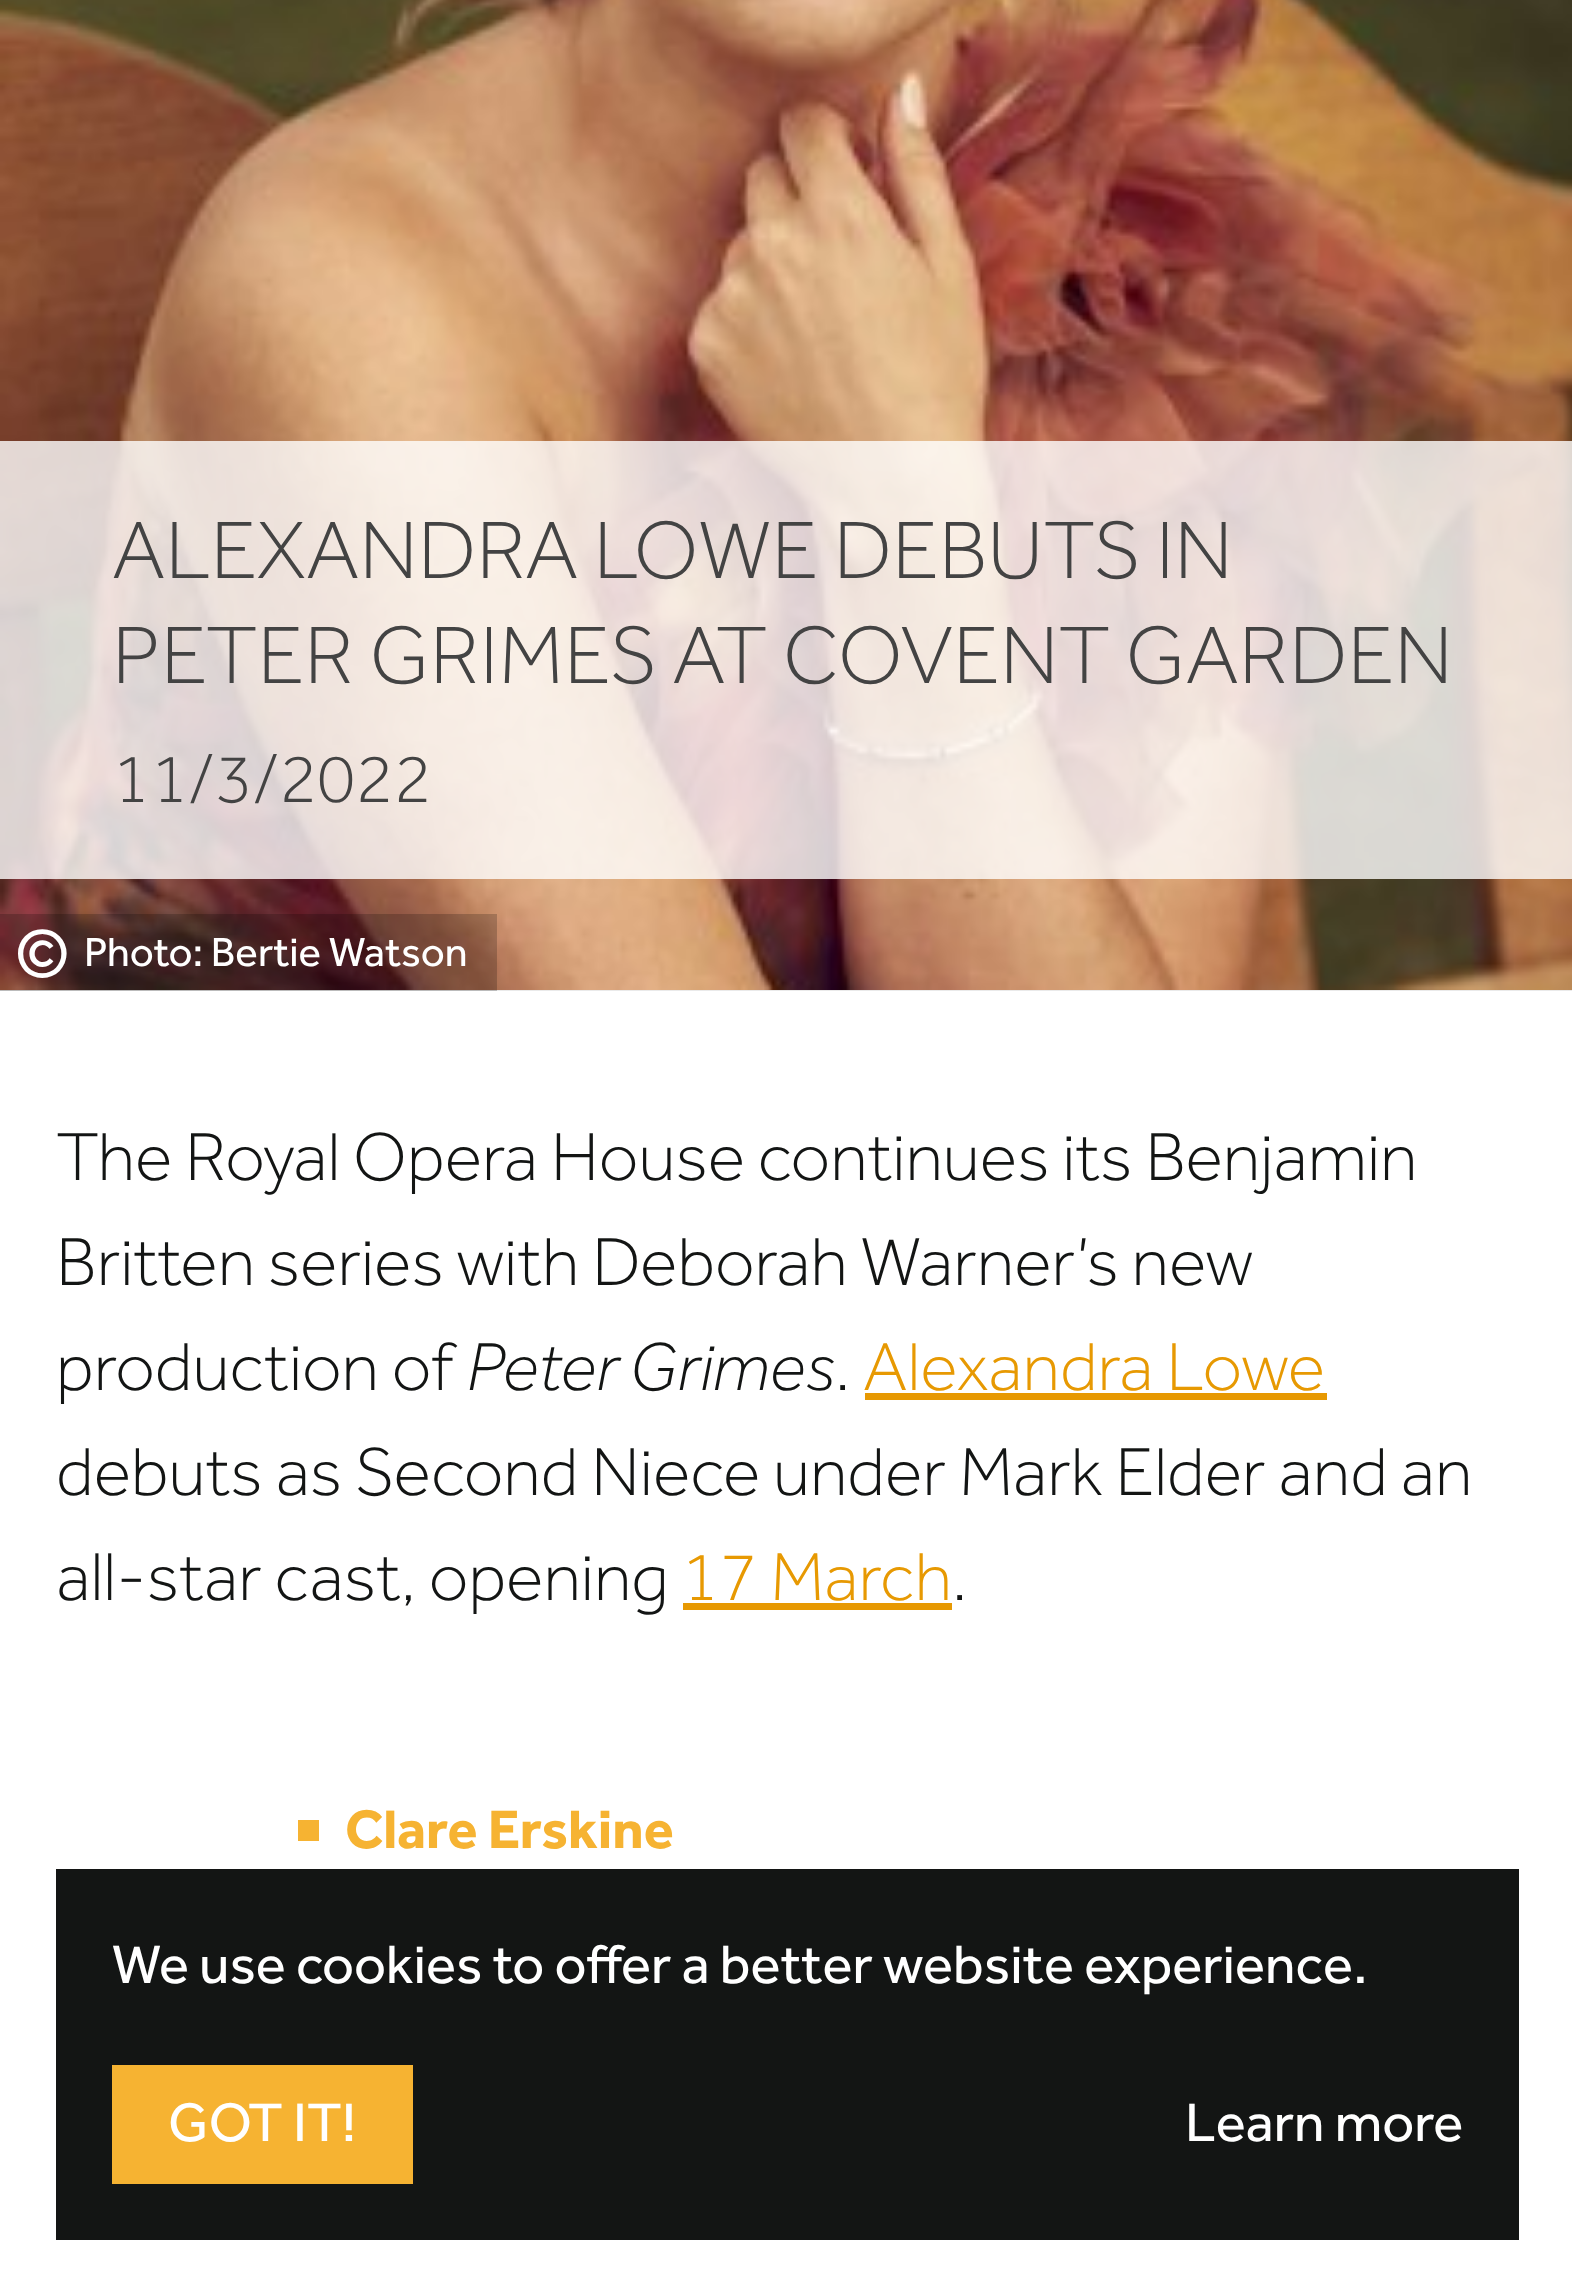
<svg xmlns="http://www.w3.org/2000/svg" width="1572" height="2295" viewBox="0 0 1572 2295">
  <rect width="100%" height="100%" fill="#ffffff"/>
  <image x="0" y="0" width="1572" height="990" href="img1.png"/>
  <rect x="0" y="441" width="1572" height="438" fill="#ffffff" fill-opacity="0.8"/>
  <text x="112" y="578" font-family="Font" font-size="84" font-weight="300" fill="#434343">ALEXANDRA LOWE DEBUTS IN</text>
  <text x="112" y="683" font-family="Font" font-size="84" font-weight="300" fill="#434343">PETER GRIMES AT COVENT GARDEN</text>
  <text x="112" y="802" font-family="Font" font-size="70" font-weight="300" fill="#434343">11/3/2022</text>
  <rect x="0" y="990" width="1572" height="1" fill="#eaeaea"/>
  <rect x="0" y="914" width="497" height="77" fill="#000000" fill-opacity="0.2"/>
  <text x="14" y="977" font-family="Font" font-size="70" fill="#ffffff">©</text>
  <text x="84" y="966" font-family="Font" font-size="42" fill="#ffffff">Photo: Bertie Watson</text>
  <text x="56" y="1180" font-family="Font" font-size="70" font-weight="300" fill="#131514">The Royal Opera House continues its Benjamin</text>
  <text x="56" y="1285" font-family="Font" font-size="70" font-weight="300" fill="#131514">Britten series with Deborah Warner’s new</text>
  <text x="56" y="1390" font-family="Font" font-size="70" font-weight="300" fill="#131514">production of</text>
  <text x="466" y="1390" font-family="Font" font-size="70" font-weight="300" font-style="italic" fill="#131514">Peter Grimes</text>
  <text x="835" y="1390" font-family="Font" font-size="70" font-weight="300" fill="#131514">.</text>
  <text x="863" y="1390" font-family="Font" font-size="70" font-weight="300" fill="#e79902">Alexandra Lowe</text>
  <rect x="865" y="1393" width="462" height="7" fill="#e79902"/>
  <text x="56" y="1495" font-family="Font" font-size="70" font-weight="300" fill="#131514">debuts as Second Niece under Mark Elder and an</text>
  <text x="56" y="1600" font-family="Font" font-size="70" font-weight="300" fill="#131514">all-star cast, opening</text>
  <text x="681" y="1600" font-family="Font" font-size="70" font-weight="300" fill="#e79902">17 March</text>
  <rect x="683" y="1603" width="269" height="7" fill="#e79902"/>
  <text x="952" y="1600" font-family="Font" font-size="70" font-weight="300" fill="#131514">.</text>
  <rect x="298" y="1820" width="21" height="21" fill="#f6b332"/>
  <text x="345" y="1848" font-family="Font" font-size="56" font-weight="bold" fill="#f6b332">Clare Erskine</text>
  <rect x="56" y="1869" width="1463" height="371" fill="#131514"/>
  <text x="112" y="1983" font-family="Font" font-size="56" fill="#ffffff">We use cookies to offer a better website experience.</text>
  <rect x="112" y="2065" width="301" height="119" fill="#f6b332"/>
  <text x="168" y="2141" font-family="Font" font-size="56" fill="#ffffff">GOT IT!</text>
  <text x="1185" y="2141" font-family="Font" font-size="56" fill="#ffffff">Learn more</text>
</svg>
